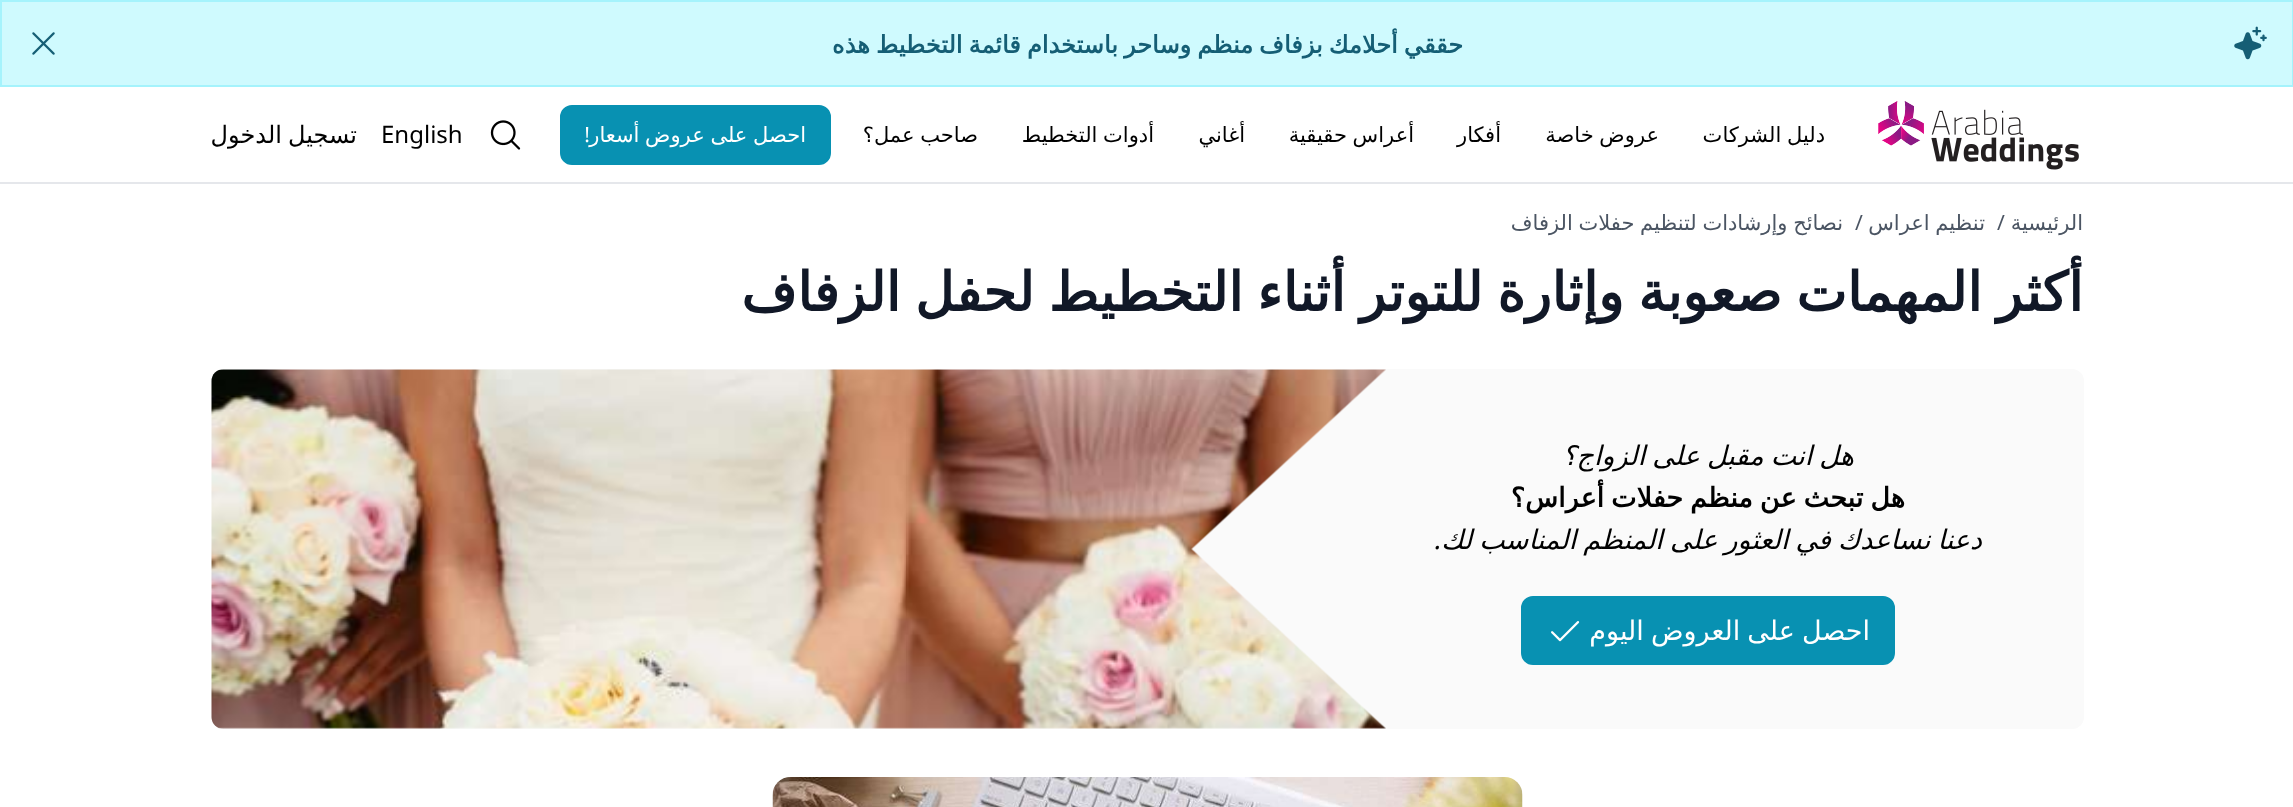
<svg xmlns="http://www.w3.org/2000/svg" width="2293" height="807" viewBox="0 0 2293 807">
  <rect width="100%" height="100%" fill="#ffffff"/>
  <rect x="1" y="1" width="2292" height="85" fill="#cffafe" stroke="#a5f3fc" stroke-width="2"/>
  <image x="2234" y="26" width="33" height="34" href="img1.png"/>
  <text x="1463" y="53" word-spacing="-1.5" font-family="DejaVu Sans" font-size="24" font-weight="bold" direction="rtl" fill="#155e75">حققي أحلامك بزفاف منظم وساحر باستخدام قائمة التخطيط هذه</text>
  <image x="32" y="32" width="23" height="23" href="img2.png"/>
  <rect x="0" y="182" width="2293" height="2" fill="#e5e7eb"/>
  <image x="1878" y="101" width="201" height="69" href="img3.png"/>
  <text x="1825" y="142" word-spacing="-1" font-family="DejaVu Sans" font-size="21" direction="rtl" fill="#000000">دليل الشركات</text>
  <text x="1659" y="142" word-spacing="-1" font-family="DejaVu Sans" font-size="21" direction="rtl" fill="#000000">عروض خاصة</text>
  <text x="1501" y="142" font-family="DejaVu Sans" font-size="21" direction="rtl" fill="#000000">أفكار</text>
  <text x="1414" y="142" word-spacing="-1" font-family="DejaVu Sans" font-size="21" direction="rtl" fill="#000000">أعراس حقيقية</text>
  <text x="1245" y="142" font-family="DejaVu Sans" font-size="21" direction="rtl" fill="#000000">أغاني</text>
  <text x="1154" y="142" word-spacing="-1" font-family="DejaVu Sans" font-size="21" direction="rtl" fill="#000000">أدوات التخطيط</text>
  <text x="978" y="142" word-spacing="-1" font-family="DejaVu Sans" font-size="21" direction="rtl" fill="#000000">صاحب عمل؟</text>
  <rect x="561" y="106" width="269" height="58" rx="11" fill="#0891b2" stroke="#0891b2" stroke-width="2"/>
  <text x="806" y="142" word-spacing="-1" font-family="DejaVu Sans" font-size="21" direction="rtl" fill="#ffffff">احصل على عروض أسعار</text>
  <text x="590" y="142" font-family="Noto Sans" font-size="21" direction="rtl" fill="#ffffff">!</text>
  <image x="490" y="120" width="31" height="30" href="img4.png"/>
  <text x="381" y="143" font-family="Noto Sans" font-size="24" fill="#000000">English</text>
  <text x="357" y="143" word-spacing="-1.5" font-family="DejaVu Sans" font-size="24" direction="rtl" fill="#000000">تسجيل الدخول</text>
  <text x="2083" y="230" font-family="DejaVu Sans" font-size="21" direction="rtl" fill="#4b5563">الرئيسية</text>
  <text x="1997" y="230" font-family="Noto Sans" font-size="21" fill="#4b5563">/</text>
  <text x="1985" y="230" word-spacing="-1" font-family="DejaVu Sans" font-size="21" direction="rtl" fill="#4b5563">تنظيم اعراس</text>
  <text x="1855" y="230" font-family="Noto Sans" font-size="21" fill="#4b5563">/</text>
  <text x="1843" y="230" word-spacing="-1" font-family="DejaVu Sans" font-size="21" direction="rtl" fill="#4b5563">نصائح وإرشادات لتنظيم حفلات الزفاف</text>
  <text x="2083" y="311" word-spacing="-3" font-family="DejaVu Sans" font-size="54" font-weight="bold" direction="rtl" fill="#111827">أكثر المهمات صعوبة وإثارة للتوتر أثناء التخطيط لحفل الزفاف</text>
  <rect x="212" y="369" width="1872" height="360" rx="12" fill="#fafafa"/>
  <text x="1854" y="465" word-spacing="-1.5" font-family="DejaVu Sans" font-size="27" font-style="italic" direction="rtl" fill="#000000">هل انت مقبل على الزواج؟</text>
  <text x="1905" y="507" word-spacing="-1.5" font-family="DejaVu Sans" font-size="27" font-weight="bold" direction="rtl" fill="#000000">هل تبحث عن منظم حفلات أعراس؟</text>
  <text x="1982" y="549" word-spacing="-1.5" font-family="DejaVu Sans" font-size="27" font-style="italic" direction="rtl" fill="#000000">دعنا نساعدك في العثور على المنظم المناسب لك</text>
  <text x="1442" y="549" font-family="Noto Sans" font-size="27" font-style="italic" direction="rtl" fill="#000000">.</text>
  <rect x="1522" y="597" width="372" height="67" rx="11" fill="#0891b2" stroke="#0891b2" stroke-width="2"/>
  <text x="1870" y="640" word-spacing="-1.5" font-family="DejaVu Sans" font-size="27" direction="rtl" fill="#ffffff">احصل على العروض اليوم</text>
  <image x="1551" y="621" width="29" height="21" href="img5.png"/>
  <image x="211" y="369" width="1175" height="360" href="img6.png"/>
  <image x="772" y="777" width="751" height="30" href="img7.png"/>
</svg>
